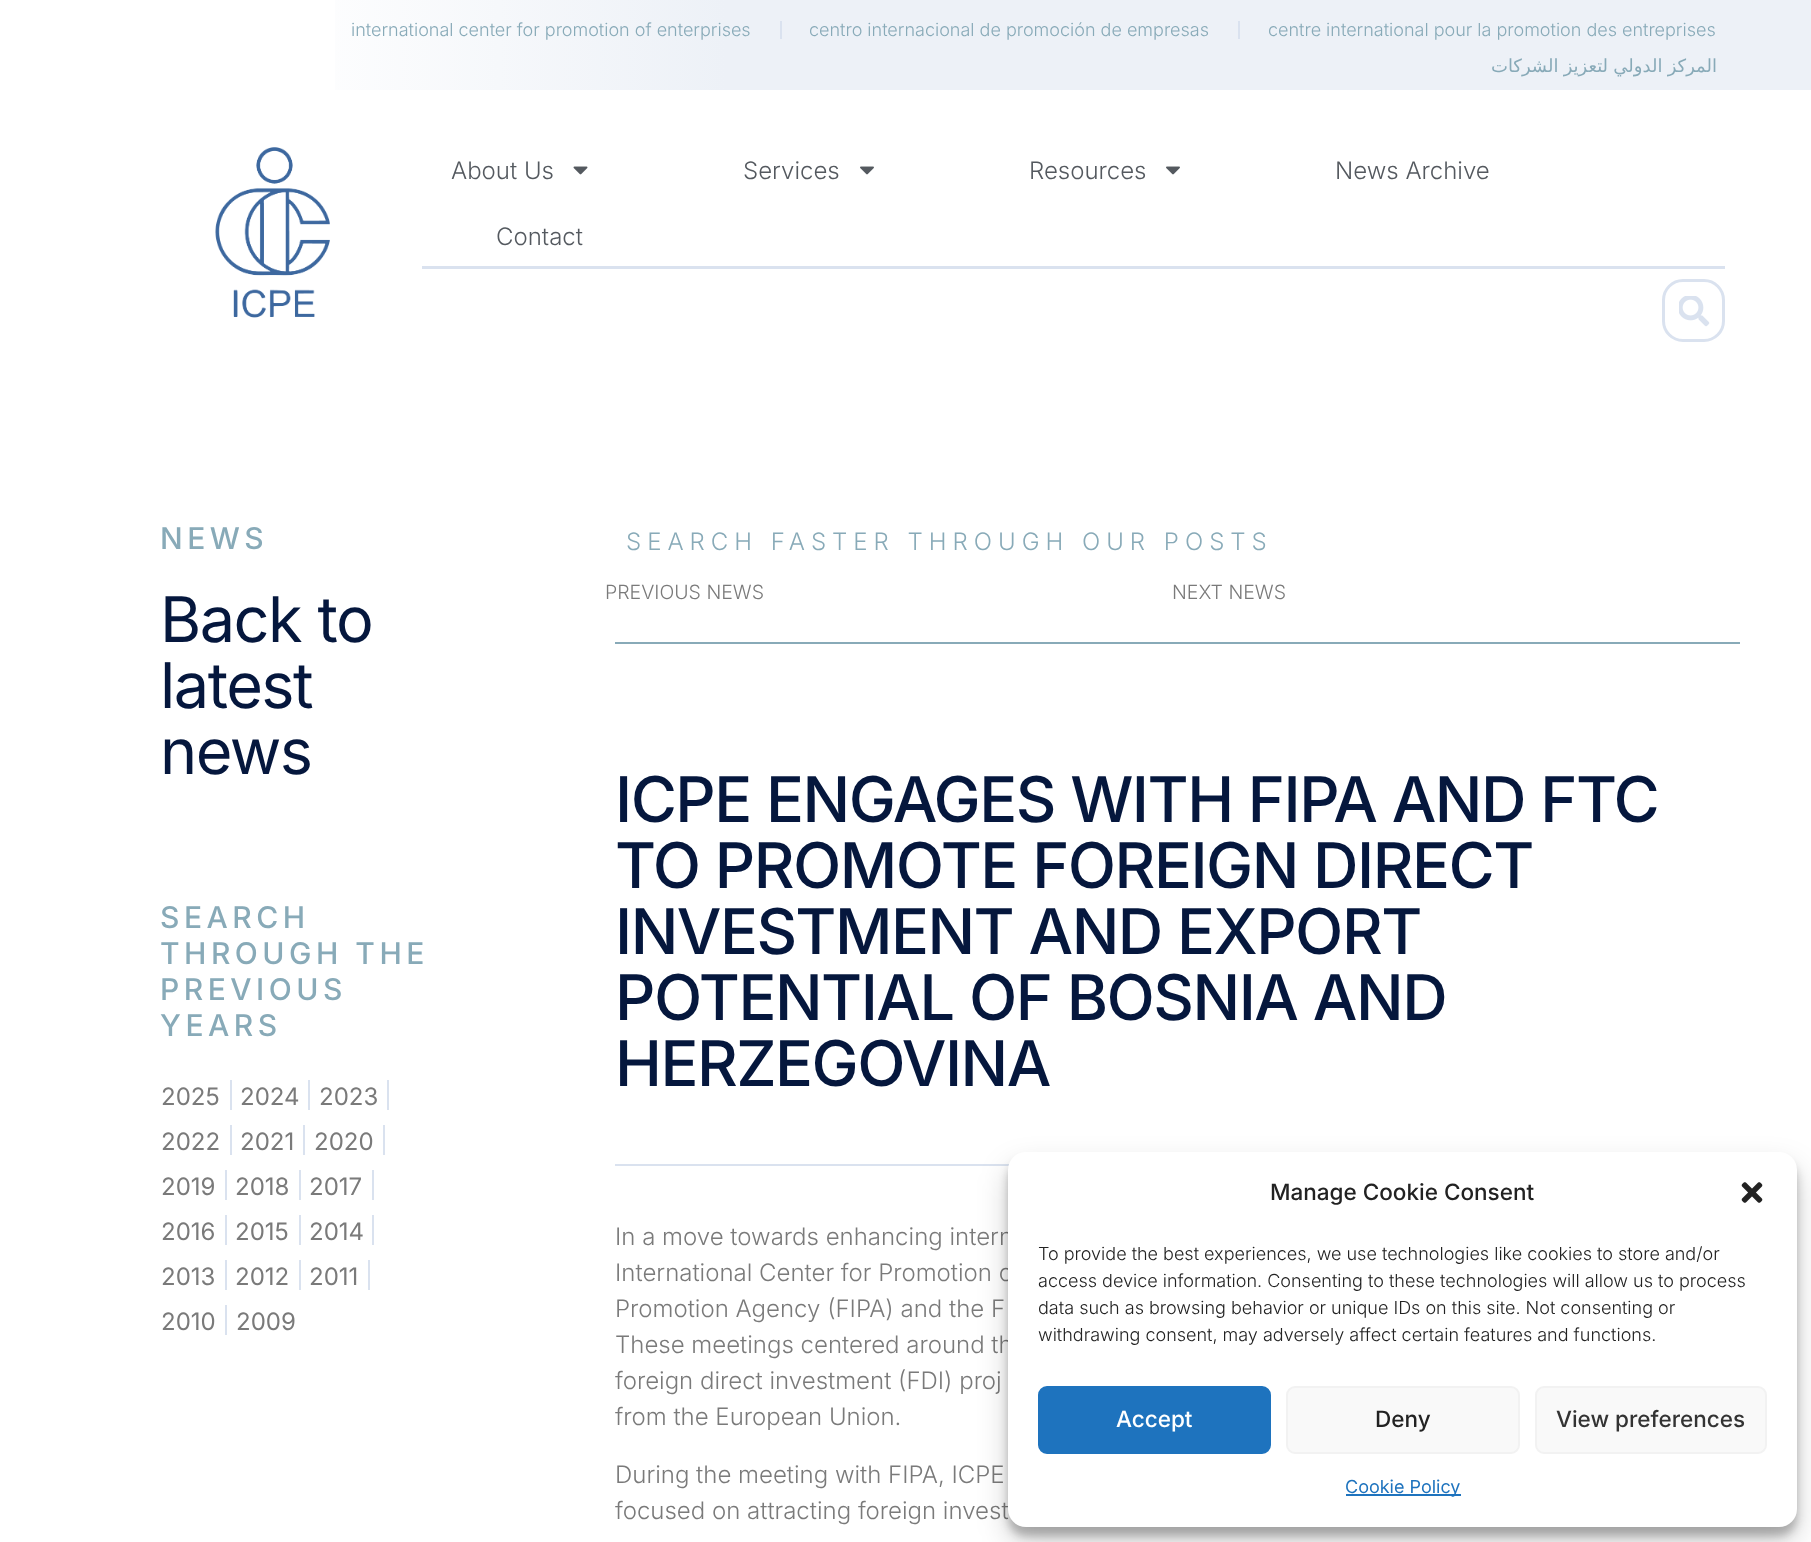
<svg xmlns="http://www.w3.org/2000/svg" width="1811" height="1542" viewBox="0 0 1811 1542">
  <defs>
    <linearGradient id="g1" gradientUnits="userSpaceOnUse" x1="0" y1="42" x2="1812" y2="42"><stop offset="0.15" stop-color="#ffffff"/><stop offset="0.4" stop-color="#edf1f7"/></linearGradient>
    <filter id="blur1" x="-50%" y="-200%" width="200%" height="500%"><feGaussianBlur stdDeviation="4.5"/></filter>
    <filter id="blur2" x="-50%" y="-200%" width="200%" height="500%"><feGaussianBlur stdDeviation="15"/></filter>
  </defs>
  <rect width="100%" height="100%" fill="#ffffff"/>
  <rect x="335" y="0" width="1476" height="90" fill="url(#g1)"/>
  <text x="351" y="36" font-family="Inter" font-size="18" font-weight="300" fill="#88aab8">international center for promotion of enterprises</text>
  <rect x="780" y="21" width="2" height="18" fill="#dae2ef"/>
  <text x="809" y="36" font-family="Inter" font-size="18" font-weight="300" fill="#88aab8">centro internacional de promoción de empresas</text>
  <rect x="1238" y="21" width="2" height="18" fill="#dae2ef"/>
  <text x="1268" y="36" font-family="Inter" font-size="18" font-weight="300" fill="#88aab8">centre international pour la promotion des entreprises</text>
  <text x="1717" y="72" word-spacing="-0.5" font-family="DejaVu Sans" font-size="18" direction="rtl" fill="#88aab8">المركز الدولي لتعزيز الشركات</text>
  <image x="215" y="147" width="115" height="171" href="img1.png"/>
  <text x="451" y="179" font-family="Inter" font-size="24" font-weight="300" fill="#54595f">About Us</text>
  <image x="573" y="166" width="15" height="9" href="img2.png"/>
  <text x="743" y="179" font-family="Inter" font-size="24" font-weight="300" fill="#54595f">Services</text>
  <image x="860" y="166" width="14" height="9" href="img3.png"/>
  <text x="1029" y="179" font-family="Inter" font-size="24" font-weight="300" fill="#54595f">Resources</text>
  <image x="1166" y="166" width="14" height="9" href="img3.png"/>
  <text x="1335" y="179" font-family="Inter" font-size="24" font-weight="300" fill="#54595f">News Archive</text>
  <text x="496" y="245" font-family="Inter" font-size="24" font-weight="300" fill="#54595f">Contact</text>
  <rect x="422" y="266" width="1303" height="3" fill="#dae2ef"/>
  <rect x="1663.5" y="280.5" width="60" height="60" rx="19.5" fill="none" stroke="#dae2ef" stroke-width="3"/>
  <image x="1679" y="296" width="31" height="31" href="img4.png"/>
  <text x="160" y="549" font-family="Inter" font-size="30" font-weight="500" letter-spacing="4.5" fill="#88aab8">NEWS</text>
  <text x="160" y="642" font-family="Inter" font-size="63" letter-spacing="-1.5" fill="#05173d">Back to</text>
  <text x="160" y="708" font-family="Inter" font-size="63" letter-spacing="-1.5" fill="#05173d">latest</text>
  <text x="160" y="774" font-family="Inter" font-size="63" letter-spacing="-1.5" fill="#05173d">news</text>
  <text x="160" y="928" font-family="Inter" font-size="30" font-weight="500" letter-spacing="4.5" fill="#88aab8">SEARCH</text>
  <text x="160" y="964" font-family="Inter" font-size="30" font-weight="500" letter-spacing="4.5" fill="#88aab8">THROUGH THE</text>
  <text x="160" y="1000" font-family="Inter" font-size="30" font-weight="500" letter-spacing="4.5" fill="#88aab8">PREVIOUS</text>
  <text x="160" y="1036" font-family="Inter" font-size="30" font-weight="500" letter-spacing="4.5" fill="#88aab8">YEARS</text>
  <text x="161" y="1105" font-family="Inter" font-size="24" fill="#7a7a7a">2025</text>
  <rect x="230" y="1080" width="2" height="30" fill="#dae2ef"/>
  <text x="240" y="1105" font-family="Inter" font-size="24" fill="#7a7a7a">2024</text>
  <rect x="308" y="1080" width="2" height="30" fill="#dae2ef"/>
  <text x="319" y="1105" font-family="Inter" font-size="24" fill="#7a7a7a">2023</text>
  <rect x="387" y="1080" width="2" height="30" fill="#dae2ef"/>
  <text x="161" y="1150" font-family="Inter" font-size="24" fill="#7a7a7a">2022</text>
  <rect x="230" y="1125" width="2" height="30" fill="#dae2ef"/>
  <text x="240" y="1150" font-family="Inter" font-size="24" fill="#7a7a7a">2021</text>
  <rect x="303" y="1125" width="2" height="30" fill="#dae2ef"/>
  <text x="314" y="1150" font-family="Inter" font-size="24" fill="#7a7a7a">2020</text>
  <rect x="383" y="1125" width="2" height="30" fill="#dae2ef"/>
  <text x="161" y="1195" font-family="Inter" font-size="24" fill="#7a7a7a">2019</text>
  <rect x="225" y="1170" width="2" height="30" fill="#dae2ef"/>
  <text x="235" y="1195" font-family="Inter" font-size="24" fill="#7a7a7a">2018</text>
  <rect x="299" y="1170" width="2" height="30" fill="#dae2ef"/>
  <text x="309" y="1195" font-family="Inter" font-size="24" fill="#7a7a7a">2017</text>
  <rect x="372" y="1170" width="2" height="30" fill="#dae2ef"/>
  <text x="161" y="1240" font-family="Inter" font-size="24" fill="#7a7a7a">2016</text>
  <rect x="225" y="1215" width="2" height="30" fill="#dae2ef"/>
  <text x="235" y="1240" font-family="Inter" font-size="24" fill="#7a7a7a">2015</text>
  <rect x="299" y="1215" width="2" height="30" fill="#dae2ef"/>
  <text x="309" y="1240" font-family="Inter" font-size="24" fill="#7a7a7a">2014</text>
  <rect x="372" y="1215" width="2" height="30" fill="#dae2ef"/>
  <text x="161" y="1285" font-family="Inter" font-size="24" fill="#7a7a7a">2013</text>
  <rect x="225" y="1260" width="2" height="30" fill="#dae2ef"/>
  <text x="235" y="1285" font-family="Inter" font-size="24" fill="#7a7a7a">2012</text>
  <rect x="299" y="1260" width="2" height="30" fill="#dae2ef"/>
  <text x="309" y="1285" font-family="Inter" font-size="24" fill="#7a7a7a">2011</text>
  <rect x="368" y="1260" width="2" height="30" fill="#dae2ef"/>
  <text x="161" y="1330" font-family="Inter" font-size="24" fill="#7a7a7a">2010</text>
  <rect x="225" y="1305" width="2" height="30" fill="#dae2ef"/>
  <text x="236" y="1330" font-family="Inter" font-size="24" fill="#7a7a7a">2009</text>
  <text x="626" y="550" font-family="Inter" font-size="24" font-weight="300" letter-spacing="6" fill="#88aab8">SEARCH FASTER THROUGH OUR POSTS</text>
  <text x="605" y="599" font-family="Inter" font-size="19.5" font-weight="300" fill="#7a7a7a">PREVIOUS NEWS</text>
  <text x="1172" y="599" font-family="Inter" font-size="19.5" font-weight="300" fill="#7a7a7a">NEXT NEWS</text>
  <rect x="615" y="642" width="1125" height="2" fill="#88aab8"/>
  <text x="615" y="822" font-family="Inter" font-size="63" font-weight="500" letter-spacing="-1.5" fill="#05173d">ICPE ENGAGES WITH FIPA AND FTC</text>
  <text x="615" y="888" font-family="Inter" font-size="63" font-weight="500" letter-spacing="-1.5" fill="#05173d">TO PROMOTE FOREIGN DIRECT</text>
  <text x="615" y="954" font-family="Inter" font-size="63" font-weight="500" letter-spacing="-1.5" fill="#05173d">INVESTMENT AND EXPORT</text>
  <text x="615" y="1020" font-family="Inter" font-size="63" font-weight="500" letter-spacing="-1.5" fill="#05173d">POTENTIAL OF BOSNIA AND</text>
  <text x="615" y="1086" font-family="Inter" font-size="63" font-weight="500" letter-spacing="-1.5" fill="#05173d">HERZEGOVINA</text>
  <rect x="615" y="1164" width="394" height="2" fill="#dae2ef"/>
  <text x="615" y="1245" font-family="Inter" font-size="24" font-weight="300" fill="#7a7a7a">In a move towards enhancing intern</text>
  <text x="615" y="1281" font-family="Inter" font-size="24" font-weight="300" fill="#7a7a7a">International Center for Promotion o</text>
  <text x="615" y="1317" font-family="Inter" font-size="24" font-weight="300" fill="#7a7a7a">Promotion Agency (FIPA) and the F</text>
  <text x="615" y="1353" font-family="Inter" font-size="24" font-weight="300" fill="#7a7a7a">These meetings centered around th</text>
  <text x="615" y="1389" font-family="Inter" font-size="24" font-weight="300" fill="#7a7a7a">foreign direct investment (FDI) proj</text>
  <text x="615" y="1425" font-family="Inter" font-size="24" font-weight="300" fill="#7a7a7a">from the European Union.</text>
  <text x="615" y="1483" font-family="Inter" font-size="24" font-weight="300" fill="#7a7a7a">During the meeting with FIPA, ICPE</text>
  <text x="615" y="1519" font-family="Inter" font-size="24" font-weight="300" fill="#7a7a7a">focused on attracting foreign invest</text>
  <rect x="1008" y="1161" width="789" height="375" rx="18" fill="#000000" fill-opacity="0.23" filter="url(#blur1)"/>
  <rect x="1008" y="1167" width="789" height="375" rx="18" fill="#000000" fill-opacity="0.19" filter="url(#blur2)"/>
  <rect x="1008" y="1152" width="789" height="375" rx="18" fill="#ffffff"/>
  <text x="1270" y="1200" font-family="Inter" font-size="22.5" font-weight="500" fill="#222222">Manage Cookie Consent</text>
  <image x="1741" y="1182" width="22" height="21" href="img5.png"/>
  <text x="1038" y="1260" font-family="Inter" font-size="18" font-weight="300" fill="#222222">To provide the best experiences, we use technologies like cookies to store and/or</text>
  <text x="1038" y="1287" font-family="Inter" font-size="18" font-weight="300" fill="#222222">access device information. Consenting to these technologies will allow us to process</text>
  <text x="1038" y="1314" font-family="Inter" font-size="18" font-weight="300" fill="#222222">data such as browsing behavior or unique IDs on this site. Not consenting or</text>
  <text x="1038" y="1341" font-family="Inter" font-size="18" font-weight="300" fill="#222222">withdrawing consent, may adversely affect certain features and functions.</text>
  <rect x="1039" y="1387" width="231" height="66" rx="8" fill="#1e73be" stroke="#1e73be" stroke-width="2"/>
  <text x="1116" y="1427" font-family="Inter" font-size="22.5" font-weight="500" fill="#ffffff">Accept</text>
  <rect x="1287" y="1387" width="232" height="66" rx="8" fill="#f9f9f9" stroke="#f2f2f2" stroke-width="2"/>
  <text x="1375" y="1427" font-family="Inter" font-size="22.5" font-weight="500" fill="#222222">Deny</text>
  <rect x="1536" y="1387" width="230" height="66" rx="8" fill="#f9f9f9" stroke="#f2f2f2" stroke-width="2"/>
  <text x="1556" y="1427" font-family="Inter" font-size="22.5" font-weight="500" fill="#333333">View preferences</text>
  <rect x="1346" y="1494" width="115" height="2" fill="#1e73be"/>
  <text x="1345" y="1493" font-family="Inter" font-size="18" fill="#1e73be">Cookie Policy</text>
</svg>
